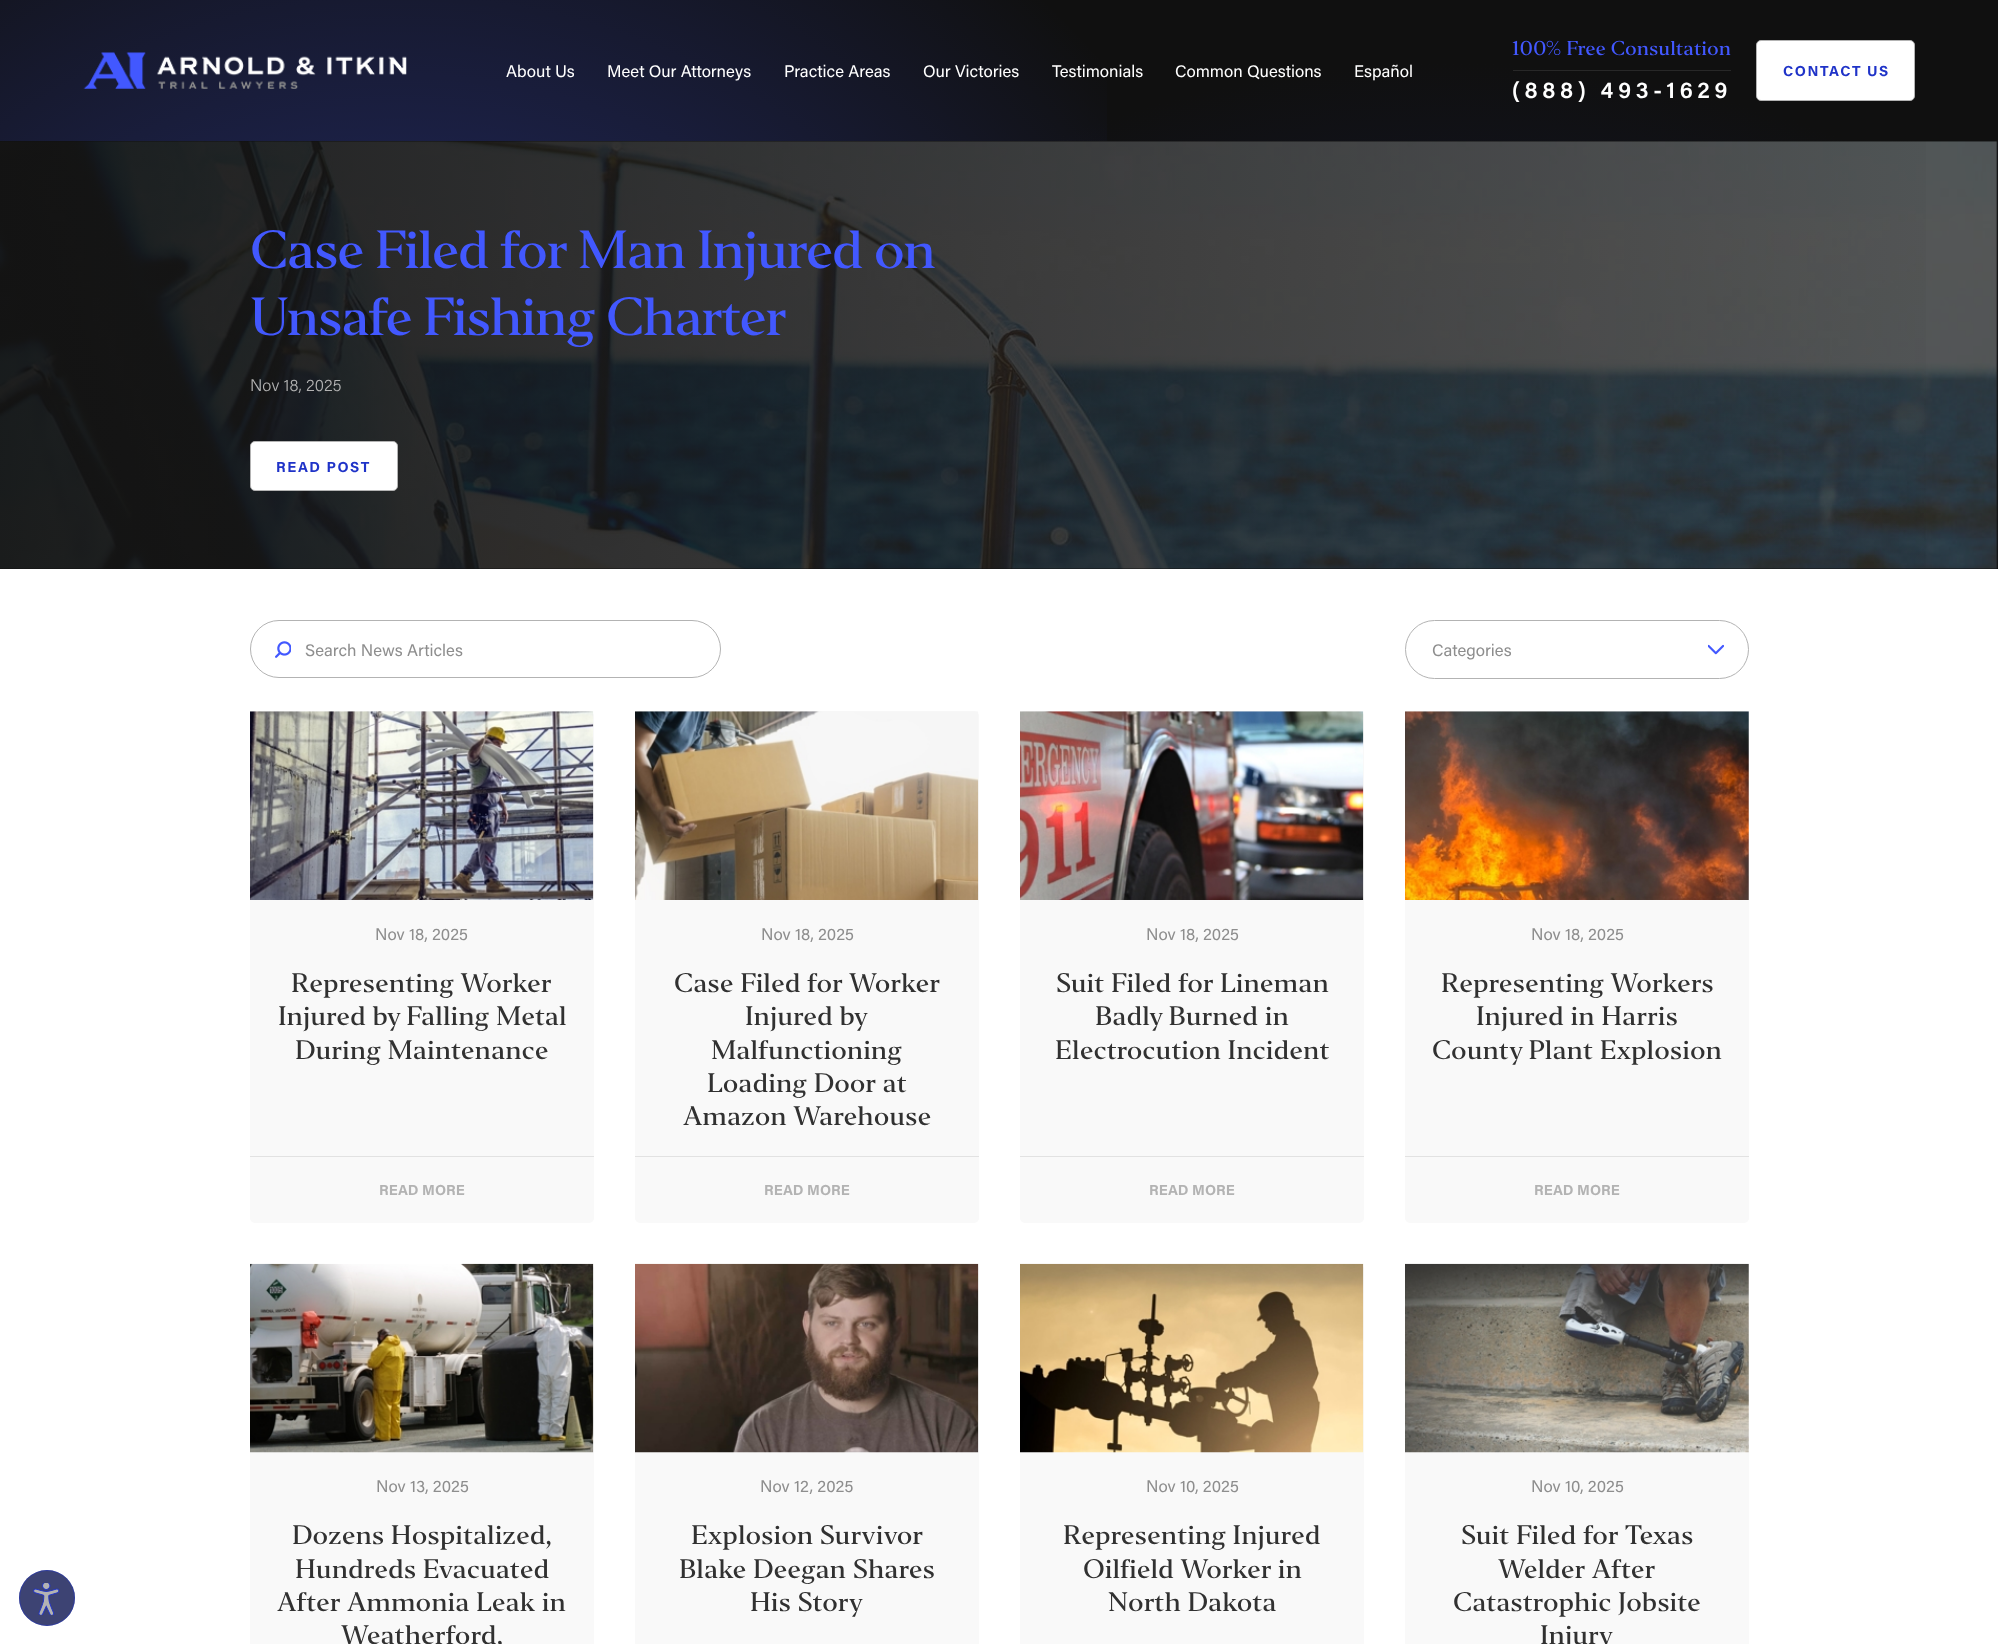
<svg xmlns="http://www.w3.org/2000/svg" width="1998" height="1644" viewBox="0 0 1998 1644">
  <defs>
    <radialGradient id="g1" gradientUnits="userSpaceOnUse" cx="1449" cy="1123" r="2652"><stop offset="0" stop-color="#18226c"/><stop offset="0.4" stop-color="#101010"/></radialGradient>
    <radialGradient id="g2" gradientUnits="userSpaceOnUse" cx="400" cy="673" r="2669"><stop offset="0" stop-color="#4258ff" stop-opacity="0.5"/><stop offset="0.35" stop-color="#4258ff" stop-opacity="0"/></radialGradient>
    <linearGradient id="g3" gradientUnits="userSpaceOnUse" x1="0" y1="355" x2="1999" y2="355"><stop offset="0" stop-color="#101010" stop-opacity="0.8"/><stop offset="1" stop-color="#101010" stop-opacity="0"/></linearGradient>
  </defs>
  <rect width="100%" height="100%" fill="#ffffff"/>
  <rect x="0" y="0" width="1998" height="141" fill="url(#g1)"/>
  <rect x="0" y="0" width="1107" height="141" fill="url(#g2)"/>
  <image x="83" y="52" width="324" height="37" href="img1.png"/>
  <text x="506" y="77" font-family="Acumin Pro" font-size="16.75" fill="#ffffff">About Us</text>
  <text x="607" y="77" font-family="Acumin Pro" font-size="16.75" fill="#ffffff">Meet Our Attorneys</text>
  <text x="784" y="77" font-family="Acumin Pro" font-size="16.75" fill="#ffffff">Practice Areas</text>
  <text x="923" y="77" font-family="Acumin Pro" font-size="16.75" fill="#ffffff">Our Victories</text>
  <text x="1052" y="77" font-family="Acumin Pro" font-size="16.75" fill="#ffffff">Testimonials</text>
  <text x="1175" y="77" font-family="Acumin Pro" font-size="16.75" fill="#ffffff">Common Questions</text>
  <text x="1354" y="77" font-family="Acumin Pro" font-size="16.75" fill="#ffffff">Español</text>
  <rect x="1513" y="70" width="218" height="1" fill="#282828"/>
  <text x="1512" y="55" font-family="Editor" font-size="18.75" font-weight="500" fill="#4258ff">100% Free Consultation</text>
  <text x="1512" y="98" font-family="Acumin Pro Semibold" font-size="23" font-weight="600" letter-spacing="4.6" fill="#ffffff">(888) 493-1629</text>
  <rect x="1756.5" y="40.5" width="158" height="60" rx="4.5" fill="#ffffff" stroke="#b3b3b3"/>
  <text x="1783" y="76" font-family="Acumin Pro" font-size="14.5" font-weight="bold" letter-spacing="1.5" fill="#1f33c8">CONTACT US</text>
  <circle cx="47" cy="1598" r="28" fill="#3d4373"/>
  <circle cx="47" cy="1598" r="27.5" fill="none" stroke="#1f33c8" stroke-opacity="0.5"/>
  <image x="33" y="1583" width="27" height="32" href="img2.png"/>
  <rect x="0" y="141" width="1998" height="428" fill="#101010"/>
  <image x="0" y="141" width="1998" height="428" href="img3.png"/>
  <rect x="0" y="141" width="1926" height="428" fill="url(#g3)"/>
  <text x="250" y="268" font-family="Editor" font-size="50" font-weight="500" letter-spacing="-1.5" fill="#4258ff">Case Filed for Man Injured on</text>
  <text x="250" y="335" font-family="Editor" font-size="50" font-weight="500" letter-spacing="-1.5" fill="#4258ff">Unsafe Fishing Charter</text>
  <text x="250" y="391" font-family="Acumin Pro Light" font-size="16.75" font-weight="300" fill="#b3b3b3">Nov 18, 2025</text>
  <rect x="250.5" y="441.5" width="147" height="49" rx="4.5" fill="#ffffff" stroke="#b3b3b3"/>
  <text x="276" y="472" font-family="Acumin Pro" font-size="14.5" font-weight="bold" letter-spacing="1.5" fill="#1f33c8">READ POST</text>
  <rect x="250.5" y="620.5" width="470" height="57" rx="28.5" fill="none" stroke="#b3b3b3"/>
  <image x="275" y="641" width="16" height="17" href="img4.png"/>
  <text x="305" y="656" font-family="Acumin Pro" font-size="16.75" fill="#8e8e8e">Search News Articles</text>
  <rect x="1405.5" y="620.5" width="343" height="58" rx="29" fill="none" stroke="#b3b3b3"/>
  <text x="1432" y="656" font-family="Acumin Pro" font-size="16.75" fill="#8e8e8e">Categories</text>
  <image x="1708" y="644" width="16" height="11" href="img5.png"/>
  <rect x="250" y="711" width="344" height="512" rx="5" fill="#f9f9f9"/>
  <image x="250" y="711" width="344" height="189" href="img6.png"/>
  <text x="375" y="940" font-family="Acumin Pro" font-size="16.75" fill="#8e8e8e">Nov 18, 2025</text>
  <text x="291" y="992" font-family="Editor" font-size="25" font-weight="500" fill="#313131">Representing Worker</text>
  <text x="278" y="1025" font-family="Editor" font-size="25" font-weight="500" fill="#313131">Injured by Falling Metal</text>
  <text x="295" y="1059" font-family="Editor" font-size="25" font-weight="500" fill="#313131">During Maintenance</text>
  <rect x="250" y="1156" width="344" height="1" fill="#e2e2e2"/>
  <text x="379" y="1195" font-family="Acumin Pro" font-size="14.5" font-weight="bold" fill="#b3b3b3">READ MORE</text>
  <rect x="635" y="711" width="344" height="512" rx="5" fill="#f9f9f9"/>
  <image x="635" y="711" width="344" height="189" href="img7.png"/>
  <text x="761" y="940" font-family="Acumin Pro" font-size="16.75" fill="#8e8e8e">Nov 18, 2025</text>
  <text x="674" y="992" font-family="Editor" font-size="25" font-weight="500" fill="#313131">Case Filed for Worker</text>
  <text x="745" y="1025" font-family="Editor" font-size="25" font-weight="500" fill="#313131">Injured by</text>
  <text x="711" y="1059" font-family="Editor" font-size="25" font-weight="500" fill="#313131">Malfunctioning</text>
  <text x="707" y="1092" font-family="Editor" font-size="25" font-weight="500" fill="#313131">Loading Door at</text>
  <text x="683" y="1125" font-family="Editor" font-size="25" font-weight="500" fill="#313131">Amazon Warehouse</text>
  <rect x="635" y="1156" width="344" height="1" fill="#e2e2e2"/>
  <text x="764" y="1195" font-family="Acumin Pro" font-size="14.5" font-weight="bold" fill="#b3b3b3">READ MORE</text>
  <rect x="1020" y="711" width="344" height="512" rx="5" fill="#f9f9f9"/>
  <image x="1020" y="711" width="344" height="189" href="img8.png"/>
  <text x="1146" y="940" font-family="Acumin Pro" font-size="16.75" fill="#8e8e8e">Nov 18, 2025</text>
  <text x="1056" y="992" font-family="Editor" font-size="25" font-weight="500" fill="#313131">Suit Filed for Lineman</text>
  <text x="1095" y="1025" font-family="Editor" font-size="25" font-weight="500" fill="#313131">Badly Burned in</text>
  <text x="1055" y="1059" font-family="Editor" font-size="25" font-weight="500" fill="#313131">Electrocution Incident</text>
  <rect x="1020" y="1156" width="344" height="1" fill="#e2e2e2"/>
  <text x="1149" y="1195" font-family="Acumin Pro" font-size="14.5" font-weight="bold" fill="#b3b3b3">READ MORE</text>
  <rect x="1405" y="711" width="344" height="512" rx="5" fill="#f9f9f9"/>
  <image x="1405" y="711" width="344" height="189" href="img9.png"/>
  <text x="1531" y="940" font-family="Acumin Pro" font-size="16.75" fill="#8e8e8e">Nov 18, 2025</text>
  <text x="1441" y="992" font-family="Editor" font-size="25" font-weight="500" fill="#313131">Representing Workers</text>
  <text x="1476" y="1025" font-family="Editor" font-size="25" font-weight="500" fill="#313131">Injured in Harris</text>
  <text x="1432" y="1059" font-family="Editor" font-size="25" font-weight="500" fill="#313131">County Plant Explosion</text>
  <rect x="1405" y="1156" width="344" height="1" fill="#e2e2e2"/>
  <text x="1534" y="1195" font-family="Acumin Pro" font-size="14.5" font-weight="bold" fill="#b3b3b3">READ MORE</text>
  <rect x="250" y="1264" width="344" height="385" rx="5" fill="#f9f9f9"/>
  <image x="250" y="1263" width="344" height="190" href="img10.png"/>
  <text x="376" y="1492" font-family="Acumin Pro" font-size="16.75" fill="#8e8e8e">Nov 13, 2025</text>
  <text x="292" y="1544" font-family="Editor" font-size="25" font-weight="500" fill="#313131">Dozens Hospitalized,</text>
  <text x="295" y="1578" font-family="Editor" font-size="25" font-weight="500" fill="#313131">Hundreds Evacuated</text>
  <text x="277" y="1611" font-family="Editor" font-size="25" font-weight="500" fill="#313131">After Ammonia Leak in</text>
  <text x="341" y="1644" font-family="Editor" font-size="25" font-weight="500" fill="#313131">Weatherford,</text>
  <rect x="635" y="1264" width="344" height="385" rx="5" fill="#f9f9f9"/>
  <image x="635" y="1263" width="344" height="190" href="img11.png"/>
  <text x="760" y="1492" font-family="Acumin Pro" font-size="16.75" fill="#8e8e8e">Nov 12, 2025</text>
  <text x="691" y="1544" font-family="Editor" font-size="25" font-weight="500" fill="#313131">Explosion Survivor</text>
  <text x="679" y="1578" font-family="Editor" font-size="25" font-weight="500" fill="#313131">Blake Deegan Shares</text>
  <text x="750" y="1611" font-family="Editor" font-size="25" font-weight="500" fill="#313131">His Story</text>
  <rect x="1020" y="1264" width="344" height="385" rx="5" fill="#f9f9f9"/>
  <image x="1020" y="1263" width="344" height="190" href="img12.png"/>
  <text x="1146" y="1492" font-family="Acumin Pro" font-size="16.75" fill="#8e8e8e">Nov 10, 2025</text>
  <text x="1063" y="1544" font-family="Editor" font-size="25" font-weight="500" fill="#313131">Representing Injured</text>
  <text x="1083" y="1578" font-family="Editor" font-size="25" font-weight="500" fill="#313131">Oilfield Worker in</text>
  <text x="1108" y="1611" font-family="Editor" font-size="25" font-weight="500" fill="#313131">North Dakota</text>
  <rect x="1405" y="1264" width="344" height="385" rx="5" fill="#f9f9f9"/>
  <image x="1405" y="1263" width="344" height="190" href="img13.png"/>
  <text x="1531" y="1492" font-family="Acumin Pro" font-size="16.75" fill="#8e8e8e">Nov 10, 2025</text>
  <text x="1461" y="1544" font-family="Editor" font-size="25" font-weight="500" fill="#313131">Suit Filed for Texas</text>
  <text x="1498" y="1578" font-family="Editor" font-size="25" font-weight="500" fill="#313131">Welder After</text>
  <text x="1453" y="1611" font-family="Editor" font-size="25" font-weight="500" fill="#313131">Catastrophic Jobsite</text>
  <text x="1540" y="1644" font-family="Editor" font-size="25" font-weight="500" fill="#313131">Injury</text>
</svg>
